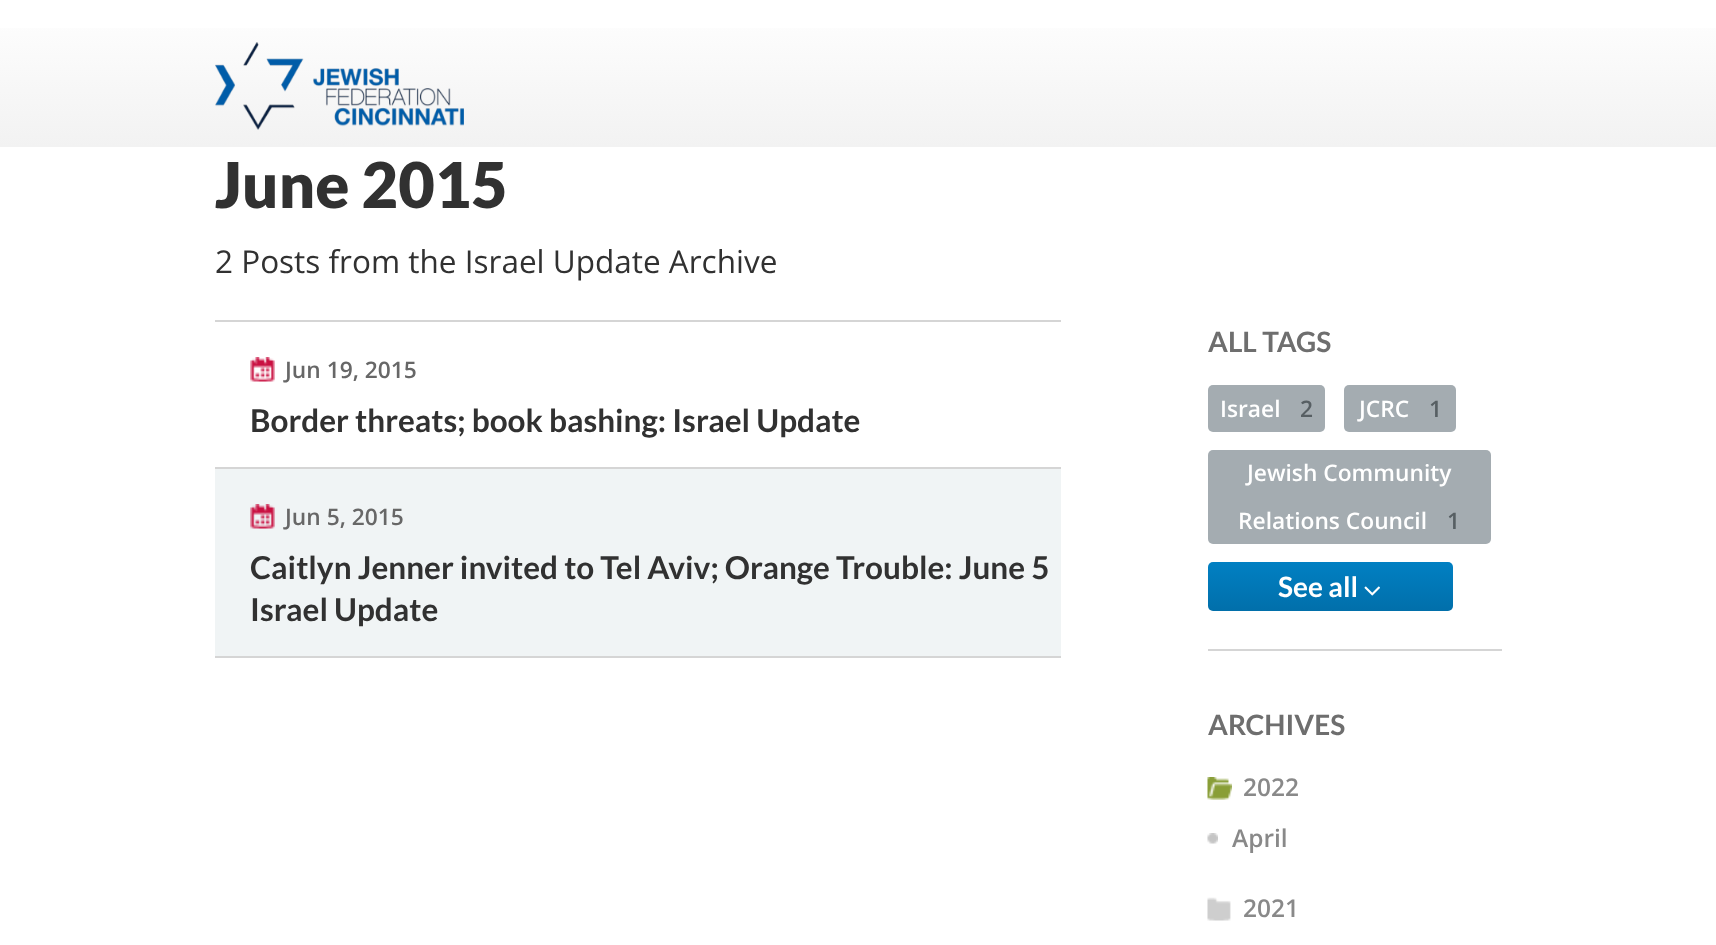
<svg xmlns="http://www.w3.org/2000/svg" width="1716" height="945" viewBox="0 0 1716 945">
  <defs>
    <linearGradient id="g1" gradientUnits="userSpaceOnUse" x1="858" y1="0" x2="858" y2="147"><stop offset="0" stop-color="#ffffff"/><stop offset="1" stop-color="#f2f2f2"/></linearGradient>
    <linearGradient id="g2" gradientUnits="userSpaceOnUse" x1="1330" y1="562" x2="1330" y2="611"><stop offset="0" stop-color="#0180c3"/><stop offset="1" stop-color="#016faa"/></linearGradient>
  </defs>
  <rect width="100%" height="100%" fill="#ffffff"/>
  <rect x="0" y="28" width="1716" height="119" fill="url(#g1)"/>
  <image x="215" y="42" width="249" height="88" href="img1.png"/>
  <text x="215" y="208" font-family="Lato" font-size="63" font-weight="900" fill="#313131">June 2015</text>
  <text x="215" y="273" font-family="Open Sans" font-size="31.5" fill="#313131">2 Posts from the Israel Update Archive</text>
  <rect x="215" y="320" width="846" height="2" fill="#d5d5d5"/>
  <rect x="215" y="467" width="846" height="2" fill="#d5d5d5"/>
  <image x="250" y="357" width="25" height="25" href="img2.png"/>
  <text x="285" y="378" font-family="Open Sans" font-size="22.75" font-weight="600" fill="#676767">Jun 19, 2015</text>
  <text x="250" y="432" font-family="Lato" font-size="31.5" font-weight="bold" fill="#313131">Border threats; book bashing: Israel Update</text>
  <rect x="215" y="469" width="846" height="187" fill="#f0f4f5"/>
  <rect x="215" y="656" width="846" height="2" fill="#d5d5d5"/>
  <image x="250" y="504" width="25" height="25" href="img3.png"/>
  <text x="285" y="525" font-family="Open Sans" font-size="22.75" font-weight="600" fill="#676767">Jun 5, 2015</text>
  <text x="250" y="579" font-family="Lato" font-size="31.5" font-weight="bold" fill="#313131">Caitlyn Jenner invited to Tel Aviv; Orange Trouble: June 5</text>
  <text x="250" y="621" font-family="Lato" font-size="31.5" font-weight="bold" fill="#313131">Israel Update</text>
  <text x="1208" y="352" font-family="Lato" font-size="28" font-weight="bold" fill="#6e6e6e">ALL TAGS</text>
  <rect x="1208" y="385" width="117" height="47" rx="5" fill="#a4acb1"/>
  <text x="1220" y="417" font-family="Open Sans" font-size="22.75" font-weight="600" fill="#ffffff">Israel</text>
  <text x="1300" y="417" font-family="Open Sans" font-size="22.75" font-weight="600" fill="#575f63">2</text>
  <rect x="1344" y="385" width="112" height="47" rx="5" fill="#a4acb1"/>
  <text x="1359" y="417" font-family="Open Sans" font-size="22.75" font-weight="600" fill="#ffffff">JCRC</text>
  <text x="1429" y="417" font-family="Open Sans" font-size="22.75" font-weight="600" fill="#575f63">1</text>
  <rect x="1208" y="450" width="283" height="94" rx="5" fill="#a4acb1"/>
  <text x="1247" y="481" font-family="Open Sans" font-size="22.75" font-weight="600" fill="#ffffff">Jewish Community</text>
  <text x="1238" y="529" font-family="Open Sans" font-size="22.75" font-weight="600" fill="#ffffff">Relations Council</text>
  <text x="1447" y="529" font-family="Open Sans" font-size="22.75" font-weight="600" fill="#575f63">1</text>
  <rect x="1208" y="562" width="245" height="49" rx="5" fill="url(#g2)"/>
  <text x="1278" y="597" font-family="Lato" font-size="28" font-weight="bold" fill="#ffffff">See all</text>
  <image x="1364" y="586" width="16" height="10" href="img4.png"/>
  <rect x="1208" y="649" width="294" height="2" fill="#d5d5d5"/>
  <text x="1208" y="735" font-family="Lato" font-size="28" font-weight="bold" fill="#6e6e6e">ARCHIVES</text>
  <image x="1207" y="777" width="25" height="23" href="img5.png"/>
  <text x="1243" y="796" font-family="Open Sans" font-size="24.5" font-weight="600" fill="#898989">2022</text>
  <image x="1207" y="833" width="11" height="11" href="img6.png"/>
  <text x="1232" y="847" font-family="Open Sans" font-size="24.5" font-weight="600" fill="#898989">April</text>
  <image x="1207" y="897" width="24" height="24" href="img7.png"/>
  <text x="1243" y="917" font-family="Open Sans" font-size="24.5" font-weight="600" fill="#898989">2021</text>
</svg>
